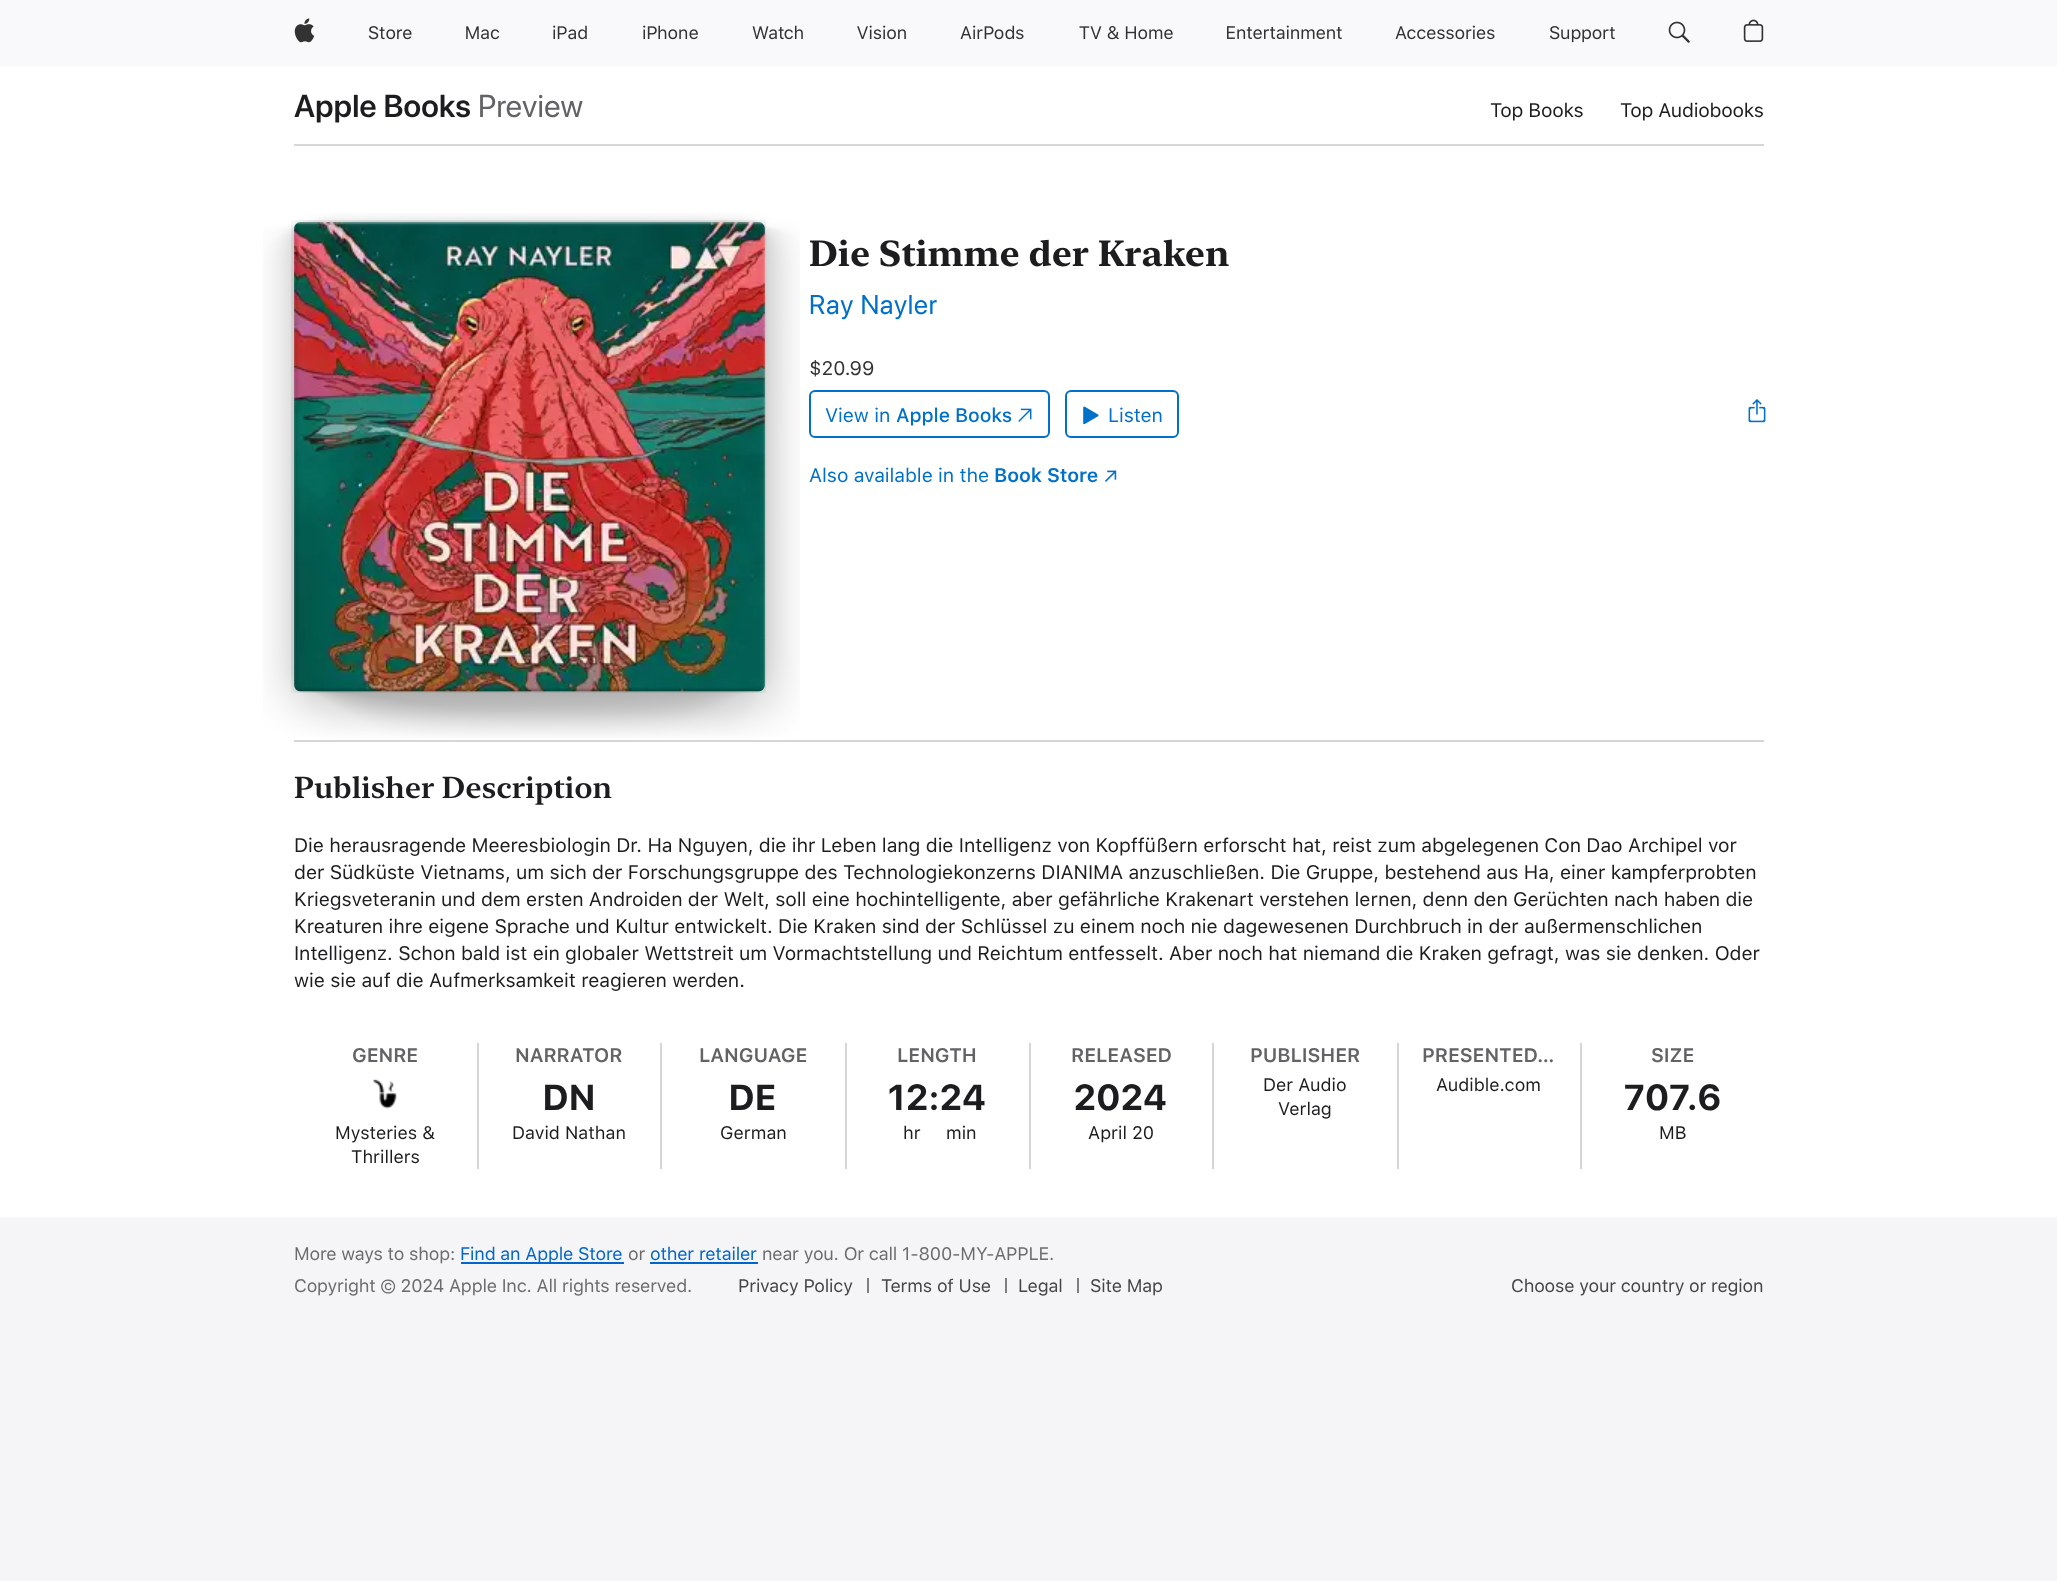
<svg xmlns="http://www.w3.org/2000/svg" width="2057" height="1581" viewBox="0 0 2057 1581">
  <rect width="100%" height="100%" fill="#f5f5f7"/>
  <rect x="0" y="0" width="2057" height="66" fill="#f9f9fb"/>
  <image x="294" y="18" width="21" height="25" href="img1.png"/>
  <image x="368" y="26" width="44" height="14" href="img2.png"/>
  <image x="466" y="26" width="34" height="14" href="img3.png"/>
  <image x="553" y="25" width="34" height="15" href="img4.png"/>
  <image x="643" y="25" width="55" height="15" href="img5.png"/>
  <image x="752" y="25" width="51" height="15" href="img6.png"/>
  <image x="857" y="25" width="49" height="15" href="img7.png"/>
  <image x="960" y="25" width="64" height="15" href="img8.png"/>
  <image x="1079" y="26" width="94" height="14" href="img9.png"/>
  <image x="1227" y="25" width="115" height="15" href="img10.png"/>
  <image x="1395" y="25" width="100" height="15" href="img11.png"/>
  <image x="1550" y="26" width="65" height="17" href="img12.png"/>
  <image x="1668" y="21" width="22" height="22" href="img13.png"/>
  <image x="1743" y="19" width="21" height="23" href="img14.png"/>
  <rect x="0" y="66" width="2057" height="1151" fill="#ffffff"/>
  <text x="294" y="117" font-family="SF Pro Display" font-size="31.5" font-weight="600" letter-spacing="0.25" fill="#1d1d1f">Apple Books</text>
  <text x="478" y="117" font-family="SF Pro Display" font-size="31.5" letter-spacing="0.25" fill="#636366">Preview</text>
  <text x="1490" y="117" font-family="SF Pro Text" font-size="19.5" letter-spacing="-0.25" fill="#1d1d1f">Top Books</text>
  <text x="1620" y="117" font-family="SF Pro Text" font-size="19.5" letter-spacing="-0.25" fill="#1d1d1f">Top Audiobooks</text>
  <rect x="294" y="144" width="1470" height="2" fill="#d6d6d6"/>
  <image x="263" y="213" width="537" height="525" href="img15.png"/>
  <image x="291" y="220" width="475" height="473" href="img16.png"/>
  <image x="294" y="222" width="471" height="470" href="img17.png"/>
  <image x="294" y="222" width="471" height="470" href="img18.png"/>
  <text x="809" y="266" font-family="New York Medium" font-size="36" font-weight="500" fill="#1d1d1f">Die Stimme der Kraken</text>
  <text x="809" y="314" font-family="SF Pro Display" font-size="27" letter-spacing="0.75" fill="#0070c9">Ray Nayler</text>
  <text x="809" y="375" font-family="SF Pro Text" font-size="19.5" letter-spacing="-0.1" fill="#333333">$20.99</text>
  <rect x="810" y="391" width="239" height="46" rx="5" fill="none" stroke="#0070c9" stroke-width="2"/>
  <text x="825" y="422" font-family="SF Pro Text" font-size="19.5" letter-spacing="-0.1" fill="#0070c9">View in</text>
  <text x="896" y="422" font-family="SF Pro Text" font-size="19.5" font-weight="500" letter-spacing="-0.1" fill="#0070c9">Apple Books</text>
  <image x="1018" y="408" width="14" height="14" href="img19.png"/>
  <rect x="1066" y="391" width="112" height="46" rx="5" fill="none" stroke="#0070c9" stroke-width="2"/>
  <image x="1083" y="406" width="16" height="19" href="img20.png"/>
  <text x="1108" y="422" font-family="SF Pro Text" font-size="19.5" letter-spacing="-0.1" fill="#0070c9">Listen</text>
  <image x="1748" y="399" width="18" height="24" href="img21.png"/>
  <text x="809" y="482" font-family="SF Pro Text" font-size="19.5" letter-spacing="-0.1" fill="#0070c9">Also available in the</text>
  <text x="994" y="482" font-family="SF Pro Text" font-size="19.5" font-weight="600" letter-spacing="-0.1" fill="#0070c9">Book Store</text>
  <image x="1105" y="470" width="12" height="12" href="img22.png"/>
  <rect x="294" y="740" width="1470" height="2" fill="#d6d6d6"/>
  <text x="294" y="798" font-family="New York Medium" font-size="30" font-weight="600" fill="#1d1d1f">Publisher Description</text>
  <text x="294" y="852" font-family="SF Pro Text" font-size="19.5" letter-spacing="-0.1" fill="#1d1d1f">Die herausragende Meeresbiologin Dr. Ha Nguyen, die ihr Leben lang die Intelligenz von Kopffüßern erforscht hat, reist zum abgelegenen Con Dao Archipel vor</text>
  <text x="294" y="879" font-family="SF Pro Text" font-size="19.5" letter-spacing="-0.1" fill="#1d1d1f">der Südküste Vietnams, um sich der Forschungsgruppe des Technologiekonzerns DIANIMA anzuschließen. Die Gruppe, bestehend aus Ha, einer kampferprobten</text>
  <text x="294" y="906" font-family="SF Pro Text" font-size="19.5" letter-spacing="-0.1" fill="#1d1d1f">Kriegsveteranin und dem ersten Androiden der Welt, soll eine hochintelligente, aber gefährliche Krakenart verstehen lernen, denn den Gerüchten nach haben die</text>
  <text x="294" y="933" font-family="SF Pro Text" font-size="19.5" letter-spacing="-0.1" fill="#1d1d1f">Kreaturen ihre eigene Sprache und Kultur entwickelt. Die Kraken sind der Schlüssel zu einem noch nie dagewesenen Durchbruch in der außermenschlichen</text>
  <text x="294" y="960" font-family="SF Pro Text" font-size="19.5" letter-spacing="-0.1" fill="#1d1d1f">Intelligenz. Schon bald ist ein globaler Wettstreit um Vormachtstellung und Reichtum entfesselt. Aber noch hat niemand die Kraken gefragt, was sie denken. Oder</text>
  <text x="294" y="987" font-family="SF Pro Text" font-size="19.5" letter-spacing="-0.1" fill="#1d1d1f">wie sie auf die Aufmerksamkeit reagieren werden.</text>
  <rect x="477" y="1043" width="2" height="126" fill="#d6d6d6"/>
  <text x="352" y="1062" font-family="SF Pro Text" font-size="19.5" font-weight="600" letter-spacing="-0.1" fill="#636366">GENRE</text>
  <image x="373" y="1079" width="24" height="30" href="img23.png"/>
  <text x="335" y="1139" font-family="SF Pro Text" font-size="18" fill="#1d1d1f">Mysteries &amp;</text>
  <text x="351" y="1163" font-family="SF Pro Text" font-size="18" fill="#1d1d1f">Thrillers</text>
  <rect x="660" y="1043" width="2" height="126" fill="#d6d6d6"/>
  <text x="515" y="1062" font-family="SF Pro Text" font-size="19.5" font-weight="600" letter-spacing="-0.1" fill="#636366">NARRATOR</text>
  <text x="543" y="1110" font-family="SF Pro Display" font-size="36" font-weight="bold" letter-spacing="1" fill="#1d1d1f">DN</text>
  <text x="512" y="1139" font-family="SF Pro Text" font-size="18" fill="#1d1d1f">David Nathan</text>
  <rect x="845" y="1043" width="2" height="126" fill="#d6d6d6"/>
  <text x="699" y="1062" font-family="SF Pro Text" font-size="19.5" font-weight="600" letter-spacing="-0.1" fill="#636366">LANGUAGE</text>
  <text x="729" y="1110" font-family="SF Pro Display" font-size="36" font-weight="bold" letter-spacing="1" fill="#1d1d1f">DE</text>
  <text x="720" y="1139" font-family="SF Pro Text" font-size="18" fill="#1d1d1f">German</text>
  <rect x="1029" y="1043" width="2" height="126" fill="#d6d6d6"/>
  <text x="897" y="1062" font-family="SF Pro Text" font-size="19.5" font-weight="600" letter-spacing="-0.1" fill="#636366">LENGTH</text>
  <text x="888" y="1110" font-family="SF Pro Display" font-size="36" font-weight="bold" letter-spacing="1" fill="#1d1d1f">12:24</text>
  <text x="903" y="1139" font-family="SF Pro Text" font-size="18" fill="#1d1d1f">hr</text>
  <text x="946" y="1139" font-family="SF Pro Text" font-size="18" fill="#1d1d1f">min</text>
  <rect x="1212" y="1043" width="2" height="126" fill="#d6d6d6"/>
  <text x="1071" y="1062" font-family="SF Pro Text" font-size="19.5" font-weight="600" letter-spacing="-0.1" fill="#636366">RELEASED</text>
  <text x="1074" y="1110" font-family="SF Pro Display" font-size="36" font-weight="bold" letter-spacing="1" fill="#1d1d1f">2024</text>
  <text x="1088" y="1139" font-family="SF Pro Text" font-size="18" fill="#1d1d1f">April 20</text>
  <rect x="1397" y="1043" width="2" height="126" fill="#d6d6d6"/>
  <text x="1250" y="1062" font-family="SF Pro Text" font-size="19.5" font-weight="600" letter-spacing="-0.1" fill="#636366">PUBLISHER</text>
  <text x="1263" y="1091" font-family="SF Pro Text" font-size="18" fill="#1d1d1f">Der Audio</text>
  <text x="1278" y="1115" font-family="SF Pro Text" font-size="18" fill="#1d1d1f">Verlag</text>
  <rect x="1580" y="1043" width="2" height="126" fill="#d6d6d6"/>
  <text x="1422" y="1062" font-family="SF Pro Text" font-size="19.5" font-weight="600" letter-spacing="-0.1" fill="#636366">PRESENTED…</text>
  <text x="1436" y="1091" font-family="SF Pro Text" font-size="18" fill="#1d1d1f">Audible.com</text>
  <text x="1651" y="1062" font-family="SF Pro Text" font-size="19.5" font-weight="600" letter-spacing="-0.1" fill="#636366">SIZE</text>
  <text x="1624" y="1110" font-family="SF Pro Display" font-size="36" font-weight="bold" letter-spacing="1" fill="#1d1d1f">707.6</text>
  <text x="1659" y="1139" font-family="SF Pro Text" font-size="18" fill="#1d1d1f">MB</text>
  <text x="294" y="1260" font-family="SF Pro Text" font-size="18" letter-spacing="-0.2" fill="#6c6c6d">More ways to shop:</text>
  <rect x="461" y="1262" width="163" height="2" fill="#0066cc"/>
  <text x="460" y="1260" font-family="SF Pro Text" font-size="18" letter-spacing="-0.2" fill="#0066cc">Find an Apple Store</text>
  <text x="628" y="1260" font-family="SF Pro Text" font-size="18" letter-spacing="-0.2" fill="#6c6c6d">or</text>
  <text x="650" y="1260" font-family="SF Pro Text" font-size="18" letter-spacing="-0.2" fill="#0066cc">other retailer</text>
  <rect x="650" y="1262" width="108" height="2" fill="#0066cc"/>
  <text x="762" y="1260" font-family="SF Pro Text" font-size="18" letter-spacing="-0.2" fill="#6c6c6d">near you. Or call 1-800-MY-APPLE.</text>
  <text x="294" y="1292" font-family="SF Pro Text" font-size="18" letter-spacing="-0.2" fill="#6c6c6d">Copyright © 2024 Apple Inc. All rights reserved.</text>
  <text x="738" y="1292" font-family="SF Pro Text" font-size="18" letter-spacing="-0.2" fill="#454545">Privacy Policy</text>
  <rect x="867" y="1278" width="2" height="15" fill="#7f7f80"/>
  <text x="881" y="1292" font-family="SF Pro Text" font-size="18" letter-spacing="-0.2" fill="#454545">Terms of Use</text>
  <rect x="1005" y="1278" width="2" height="15" fill="#7f7f80"/>
  <text x="1018" y="1292" font-family="SF Pro Text" font-size="18" letter-spacing="-0.2" fill="#454545">Legal</text>
  <rect x="1077" y="1278" width="2" height="15" fill="#7f7f80"/>
  <text x="1090" y="1292" font-family="SF Pro Text" font-size="18" letter-spacing="-0.2" fill="#454545">Site Map</text>
  <text x="1511" y="1292" font-family="SF Pro Text" font-size="18" letter-spacing="-0.2" fill="#454545">Choose your country or region</text>
</svg>
